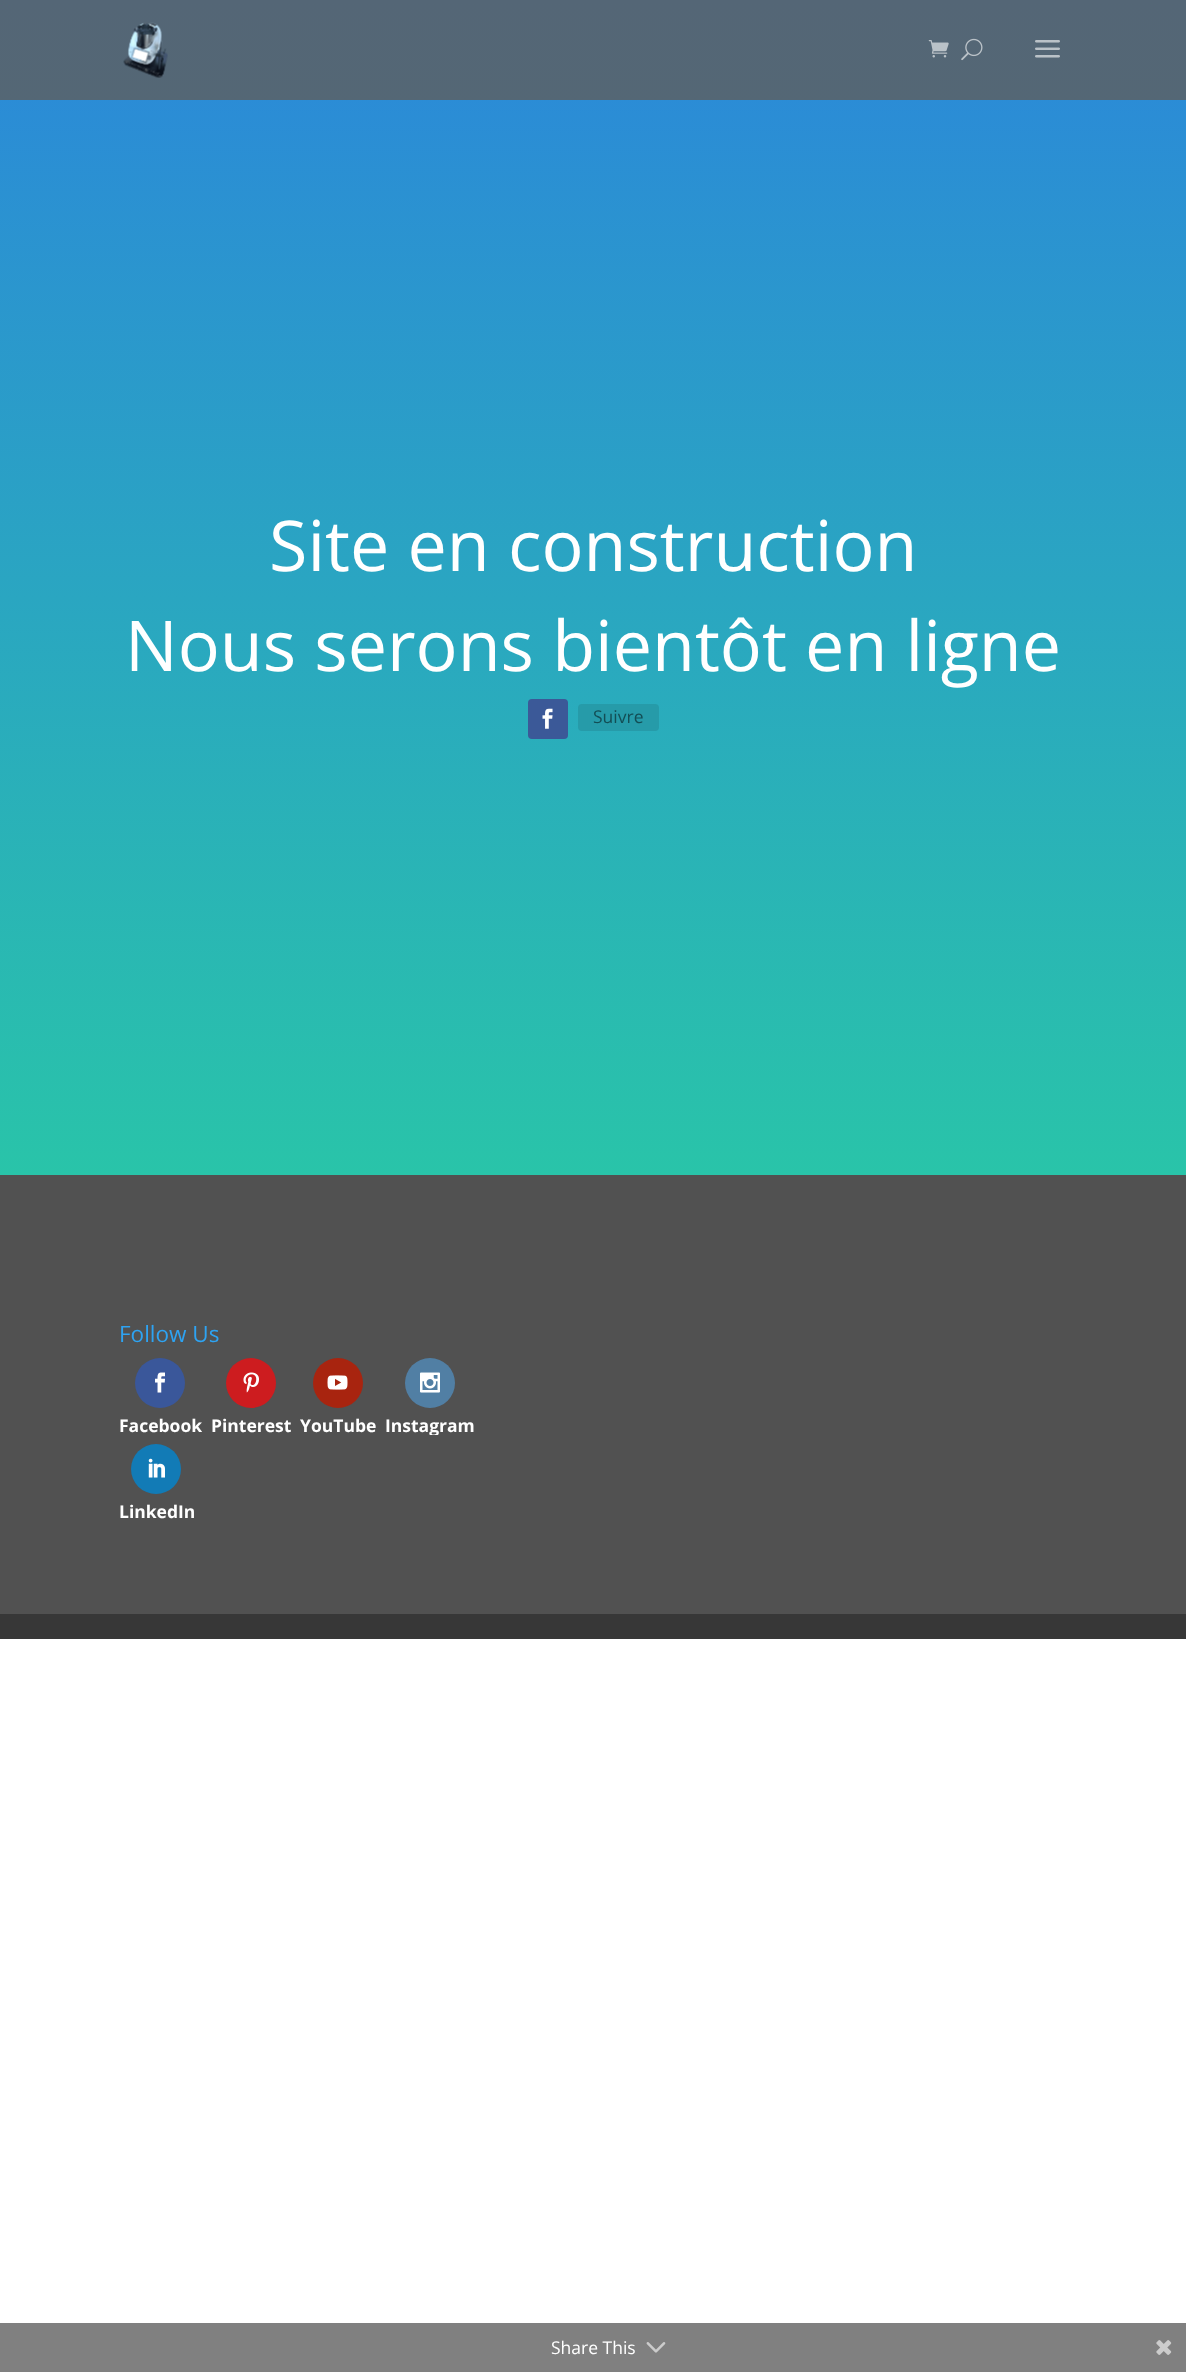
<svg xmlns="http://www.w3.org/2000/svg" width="1186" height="2372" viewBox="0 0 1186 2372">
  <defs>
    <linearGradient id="g1" gradientUnits="userSpaceOnUse" x1="593" y1="0" x2="593" y2="1175"><stop offset="0" stop-color="#546676"/><stop offset="1" stop-color="#54716c"/></linearGradient>
    <linearGradient id="g2" gradientUnits="userSpaceOnUse" x1="593" y1="0" x2="593" y2="1175"><stop offset="0" stop-color="#2b87da"/><stop offset="1" stop-color="#29c4a9"/></linearGradient>
    <clipPath id="clip1"><rect x="385" y="1358" width="90" height="77"/></clipPath>
  </defs>
  <rect width="100%" height="100%" fill="#ffffff"/>
  <rect x="0" y="0" width="1186" height="100" fill="url(#g1)"/>
  <image x="123" y="22" width="45" height="56" href="img1.png"/>
  <image x="928" y="40" width="21" height="18" href="img2.png"/>
  <image x="961" y="38" width="22" height="23" href="img3.png"/>
  <image x="1035" y="40" width="25" height="18" href="img4.png"/>
  <rect x="0" y="100" width="1186" height="1075" fill="url(#g2)"/>
  <text x="269" y="571" font-family="Open Sans" font-size="70" fill="#ffffff">Site en construction</text>
  <text x="125" y="671" font-family="Open Sans" font-size="70" fill="#ffffff">Nous serons bientôt en ligne</text>
  <rect x="528" y="699" width="40" height="40" rx="4" fill="#3b5998"/>
  <image x="542" y="708" width="11" height="21" href="img5.png"/>
  <rect x="578" y="704" width="81" height="27" rx="4" fill="#269ba9"/>
  <text x="593" y="723" font-family="Open Sans" font-size="17.5" fill="#134e55">Suivre</text>
  <rect x="0" y="1175" width="1186" height="439" fill="#515151"/>
  <text x="119" y="1342" font-family="Open Sans" font-size="22.5" fill="#2ea3f2">Follow Us</text>
  <circle cx="160" cy="1383" r="25" fill="#3a579a"/>
  <image x="155" y="1372" width="10" height="21" href="img6.png"/>
  <text x="119" y="1432" font-family="Open Sans" font-size="17.5" font-weight="bold" fill="#ffffff">Facebook</text>
  <circle cx="251" cy="1383" r="25" fill="#cd1c1f"/>
  <image x="243" y="1372" width="16" height="21" href="img7.png"/>
  <text x="211" y="1432" font-family="Open Sans" font-size="17.5" font-weight="bold" fill="#ffffff">Pinterest</text>
  <circle cx="338" cy="1383" r="25" fill="#a8240f"/>
  <image x="327" y="1375" width="21" height="15" href="img8.png"/>
  <text x="300" y="1432" font-family="Open Sans" font-size="17.5" font-weight="bold" fill="#ffffff">YouTube</text>
  <circle cx="430" cy="1383" r="25" fill="#517fa4"/>
  <image x="420" y="1372" width="20" height="21" href="img9.png"/>
  <g clip-path="url(#clip1)">
    <text x="385" y="1432" font-family="Open Sans" font-size="17.5" font-weight="bold" fill="#ffffff">Instagram</text>
  </g>
  <circle cx="156" cy="1469" r="25" fill="#127bb6"/>
  <image x="148" y="1458" width="17" height="20" href="img10.png"/>
  <text x="119" y="1518" font-family="Open Sans" font-size="17.5" font-weight="bold" fill="#ffffff">LinkedIn</text>
  <rect x="0" y="1614" width="1186" height="25" fill="#373737"/>
  <rect x="0" y="2323" width="1186" height="49" fill="#808080"/>
  <text x="551" y="2354" font-family="Open Sans" font-size="17.5" fill="#ffffff">Share This</text>
  <image x="646" y="2342" width="20" height="11" href="img11.png"/>
  <image x="1156" y="2340" width="16" height="15" href="img12.png"/>
</svg>
